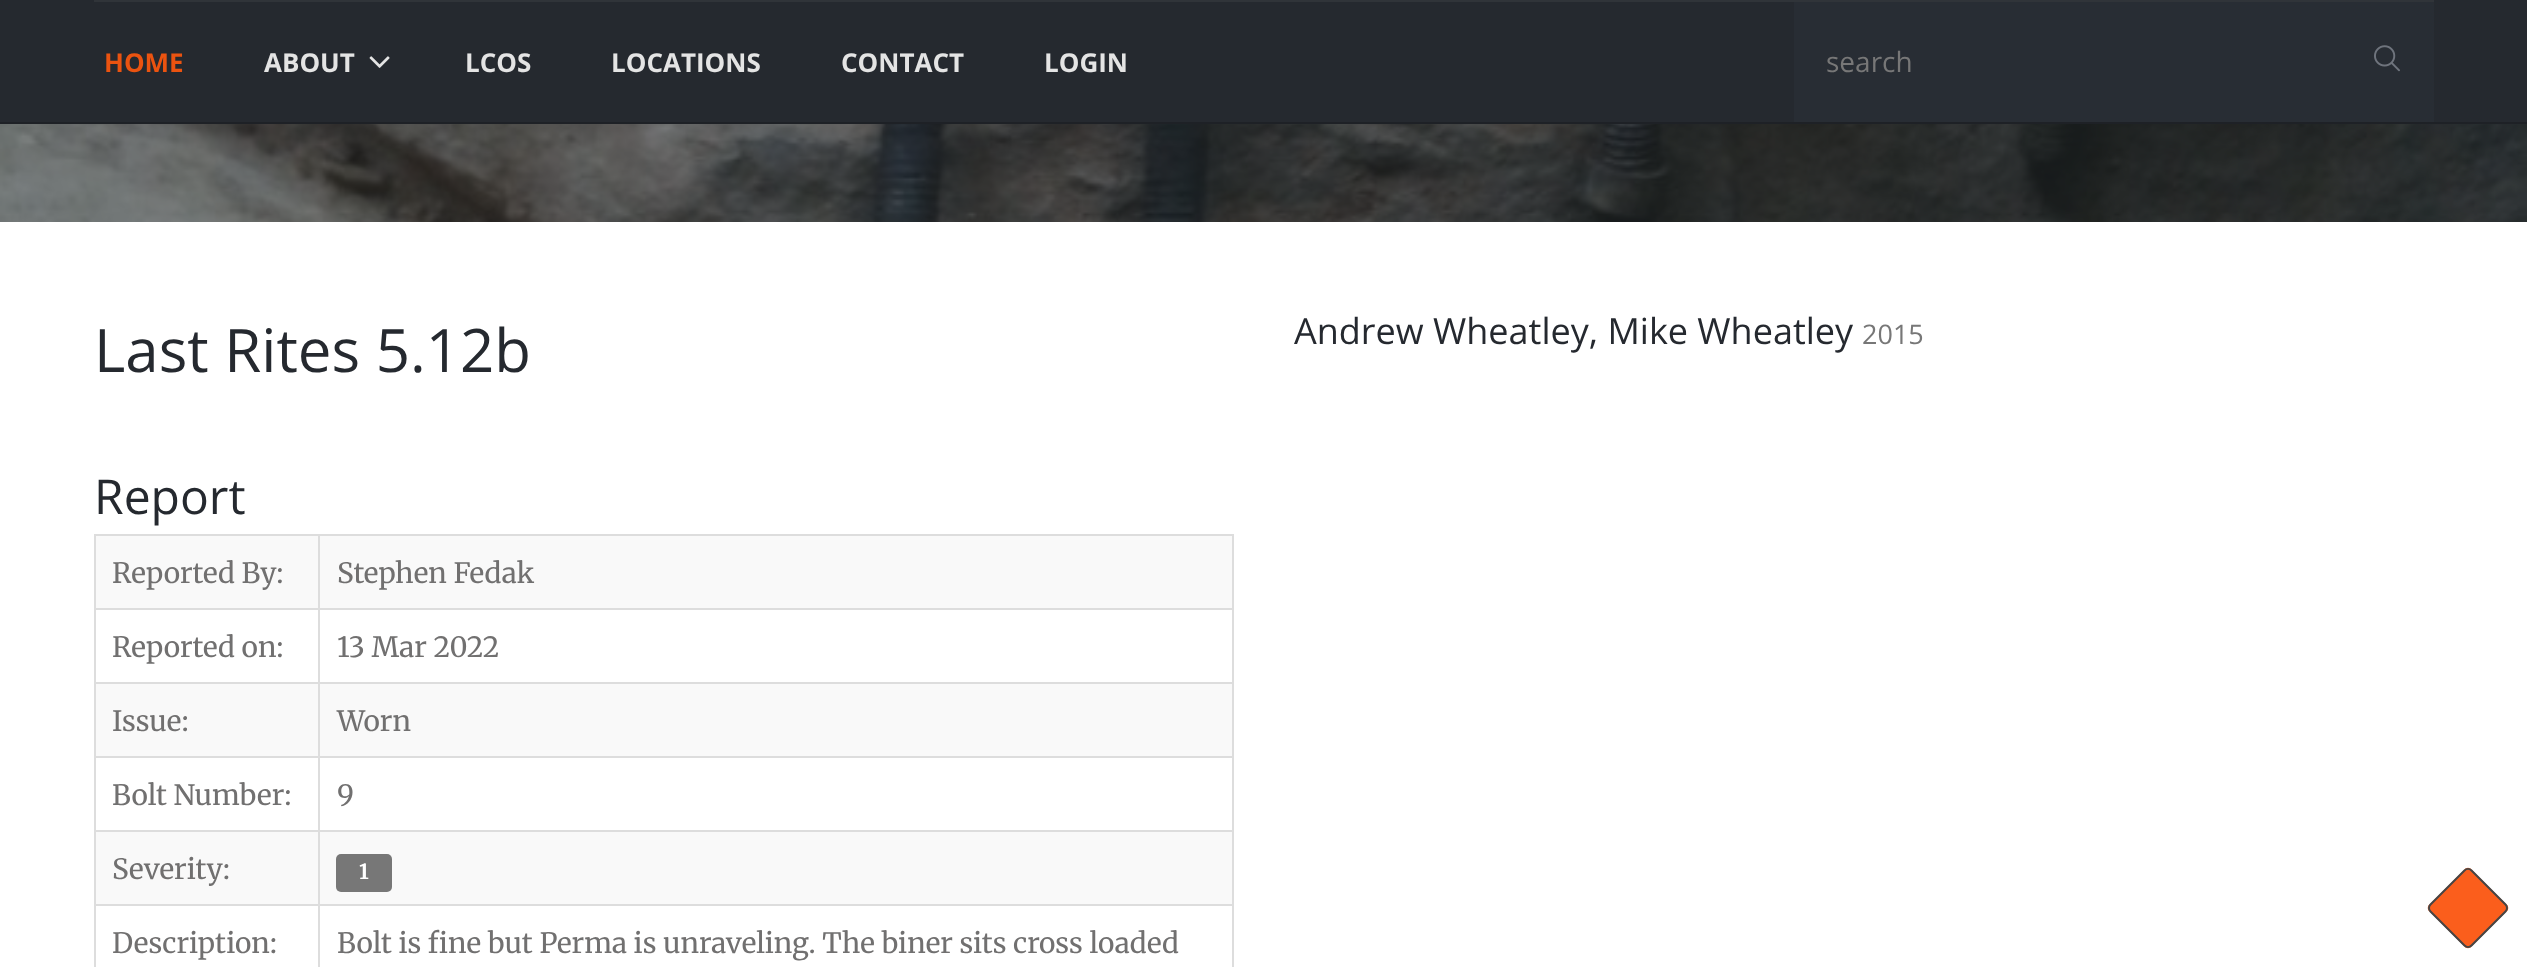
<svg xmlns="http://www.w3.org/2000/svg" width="2527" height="967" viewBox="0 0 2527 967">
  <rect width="100%" height="100%" fill="#ffffff"/>
  <rect x="0" y="0" width="2527" height="122" fill="#25292f"/>
  <rect x="0" y="122" width="2527" height="2" fill="#1e2126"/>
  <rect x="94" y="0" width="2340" height="2" fill="#303439"/>
  <text x="104" y="72" font-family="Open Sans" font-size="26" font-weight="bold" fill="#eb5310">HOME</text>
  <text x="264" y="72" font-family="Open Sans" font-size="26" font-weight="bold" fill="#e4e4e4">ABOUT</text>
  <image x="369" y="56" width="21" height="12" href="img1.png"/>
  <text x="465" y="72" font-family="Open Sans" font-size="26" font-weight="bold" fill="#e4e4e4">LCOS</text>
  <text x="611" y="72" font-family="Open Sans" font-size="26" font-weight="bold" fill="#e4e4e4">LOCATIONS</text>
  <text x="841" y="72" font-family="Open Sans" font-size="26" font-weight="bold" fill="#e4e4e4">CONTACT</text>
  <text x="1044" y="72" font-family="Open Sans" font-size="26" font-weight="bold" fill="#e4e4e4">LOGIN</text>
  <rect x="1794" y="2" width="640" height="120" fill="#282d34"/>
  <text x="1826" y="72" font-family="Open Sans" font-size="28" fill="#777777">search</text>
  <image x="2374" y="45" width="26" height="27" href="img2.png"/>
  <image x="0" y="124" width="2527" height="98" href="img3.png"/>
  <text x="94" y="372" font-family="Open Sans" font-size="60" fill="#25292f">Last Rites 5.12b</text>
  <text x="1294" y="344" font-family="Open Sans" font-size="36" fill="#25292f">Andrew Wheatley, Mike Wheatley</text>
  <text x="1862" y="344" font-family="Open Sans" font-size="27" fill="#777777">2015</text>
  <text x="94" y="514" font-family="Open Sans" font-size="48" fill="#25292f">Report</text>
  <rect x="94" y="534" width="1140" height="2" fill="#dddddd"/>
  <rect x="1232" y="534" width="2" height="433" fill="#dddddd"/>
  <rect x="94" y="534" width="2" height="433" fill="#dddddd"/>
  <rect x="96" y="536" width="1136" height="72" fill="#f9f9f9"/>
  <text x="112" y="583" font-family="Merriweather" font-size="28" fill="#717070">Reported By:</text>
  <rect x="318" y="608" width="916" height="2" fill="#dddddd"/>
  <rect x="318" y="682" width="916" height="2" fill="#dddddd"/>
  <rect x="96" y="684" width="1136" height="72" fill="#f9f9f9"/>
  <rect x="318" y="756" width="916" height="2" fill="#dddddd"/>
  <rect x="318" y="830" width="916" height="2" fill="#dddddd"/>
  <rect x="96" y="832" width="1136" height="72" fill="#f9f9f9"/>
  <rect x="318" y="904" width="916" height="2" fill="#dddddd"/>
  <rect x="318" y="904" width="2" height="63" fill="#dddddd"/>
  <rect x="94" y="904" width="226" height="2" fill="#dddddd"/>
  <rect x="318" y="830" width="2" height="76" fill="#dddddd"/>
  <rect x="94" y="830" width="226" height="2" fill="#dddddd"/>
  <rect x="318" y="756" width="2" height="76" fill="#dddddd"/>
  <rect x="94" y="756" width="226" height="2" fill="#dddddd"/>
  <rect x="318" y="682" width="2" height="76" fill="#dddddd"/>
  <rect x="94" y="682" width="226" height="2" fill="#dddddd"/>
  <rect x="318" y="608" width="2" height="76" fill="#dddddd"/>
  <rect x="94" y="608" width="226" height="2" fill="#dddddd"/>
  <rect x="318" y="534" width="2" height="76" fill="#dddddd"/>
  <text x="337" y="583" font-family="Merriweather" font-size="28" fill="#717070">Stephen Fedak</text>
  <text x="112" y="657" font-family="Merriweather" font-size="28" fill="#717070">Reported on:</text>
  <text x="337" y="657" font-family="Merriweather" font-size="28" fill="#717070">13 Mar 2022</text>
  <text x="112" y="731" font-family="Merriweather" font-size="28" fill="#717070">Issue:</text>
  <text x="337" y="731" font-family="Merriweather" font-size="28" fill="#717070">Worn</text>
  <text x="112" y="805" font-family="Merriweather" font-size="28" fill="#717070">Bolt Number:</text>
  <text x="337" y="805" font-family="Merriweather" font-size="28" fill="#717070">9</text>
  <text x="112" y="879" font-family="Merriweather" font-size="28" fill="#717070">Severity:</text>
  <rect x="336" y="854" width="56" height="38" rx="5" fill="#777777"/>
  <text x="359" y="879" font-family="Merriweather" font-size="21" font-weight="bold" fill="#ffffff">1</text>
  <text x="112" y="953" font-family="Merriweather" font-size="28" fill="#717070">Description:</text>
  <text x="337" y="953" font-family="Merriweather" font-size="28" fill="#717070">Bolt is fine but Perma is unraveling. The biner sits cross loaded</text>
  <path d="M2506 912L2472 946C2470 949 2466 949 2464 946L2430 912C2427 910 2427 906 2430 904L2464 870C2466 867 2470 867 2472 870L2506 904C2509 906 2509 910 2506 912Z" fill="#fb5e1c"/>
  <path d="M2505.5 911.5L2471.5 945.5C2469.5 947.5 2466.5 947.5 2464.5 945.5L2430.5 911.5C2428.5 909.5 2428.5 906.5 2430.5 904.5L2464.5 870.5C2466.5 868.5 2469.5 868.5 2471.5 870.5L2505.5 904.5C2507.5 906.5 2507.5 909.5 2505.5 911.5Z" fill="none" stroke="#454545" stroke-width="2"/>
</svg>
